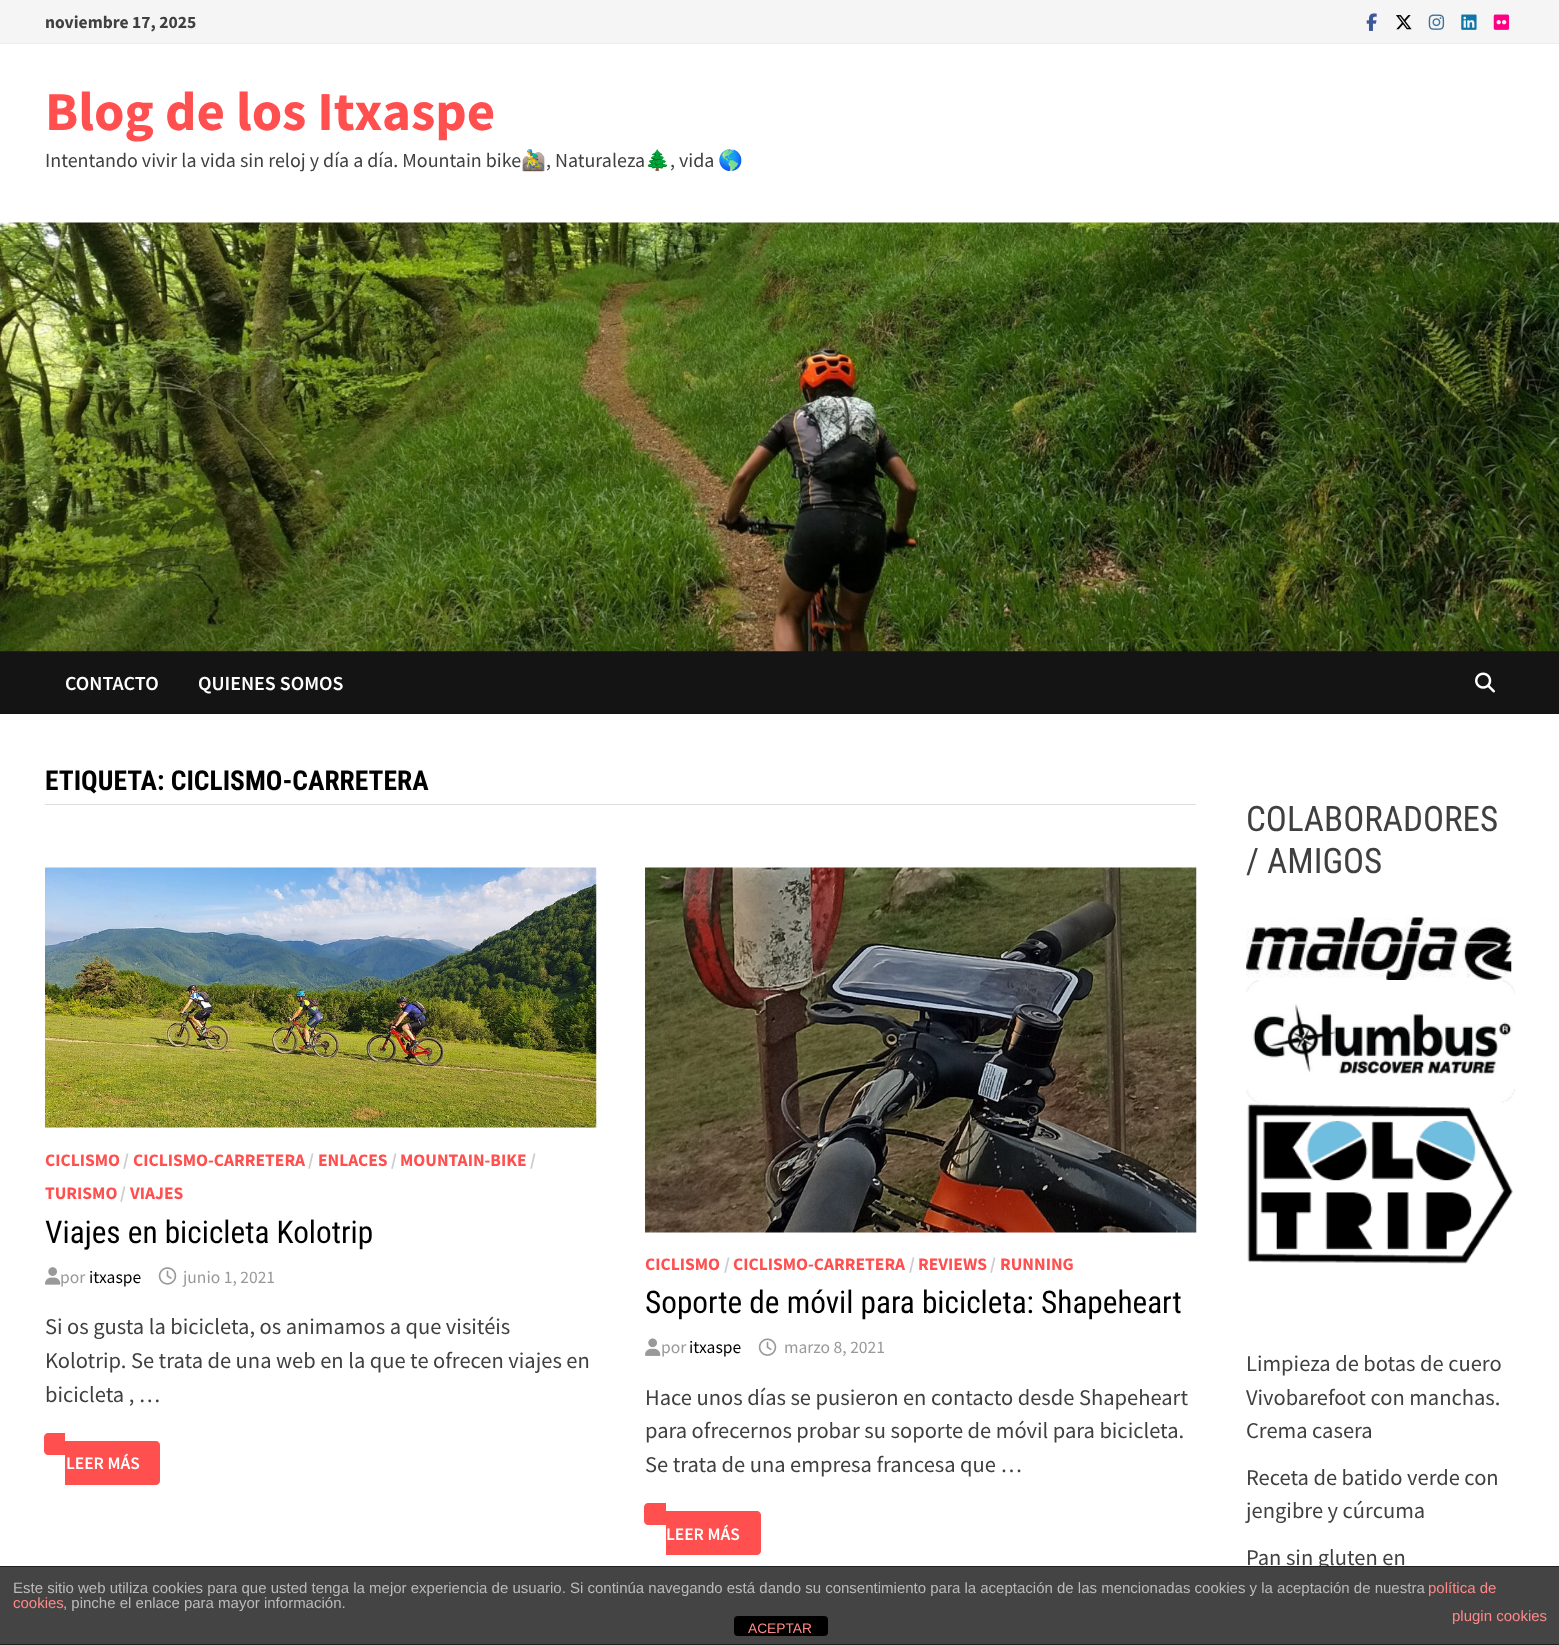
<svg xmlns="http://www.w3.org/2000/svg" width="1559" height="1645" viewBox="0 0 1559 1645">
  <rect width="100%" height="100%" fill="#ffffff"/>
  <rect x="0" y="0" width="1559" height="43" fill="#f5f5f5"/>
  <rect x="0" y="43" width="1559" height="1" fill="#eeeeee"/>
  <text x="45" y="28" font-family="Source Sans Pro" font-size="17.5" font-weight="bold" fill="#404040">noviembre 17, 2025</text>
  <image x="1366" y="13" width="11" height="18" href="img1.png"/>
  <image x="1396" y="15" width="16" height="15" href="img2.png"/>
  <image x="1428" y="14" width="17" height="16" href="img3.png"/>
  <image x="1461" y="14" width="16" height="16" href="img4.png"/>
  <image x="1493" y="14" width="17" height="16" href="img5.png"/>
  <text x="45" y="130" font-family="Source Sans Pro" font-size="55" font-weight="bold" fill="#ff4f4f">Blog de los Itxaspe</text>
  <text x="45" y="167" font-family="Source Sans Pro" font-size="20" fill="#404040">Intentando vivir la vida sin reloj y día a día. Mountain bike</text>
  <text x="521" y="167" font-family="Noto Color Emoji" font-size="20" fill="#404040">🚵‍♂️</text>
  <text x="546" y="167" font-family="Source Sans Pro" font-size="20" fill="#404040">, Naturaleza</text>
  <text x="645" y="167" font-family="Noto Color Emoji" font-size="20" fill="#404040">🌲</text>
  <text x="670" y="167" font-family="Source Sans Pro" font-size="20" fill="#404040">, vida</text>
  <text x="718" y="167" font-family="Noto Color Emoji" font-size="20" fill="#404040">🌎</text>
  <rect x="0" y="651" width="1559" height="63" fill="#141414"/>
  <image x="0" y="222" width="1559" height="430" href="img6.png"/>
  <text x="65" y="690" font-family="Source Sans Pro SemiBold" font-size="20" font-weight="600" fill="#ffffff">CONTACTO</text>
  <text x="198" y="690" font-family="Source Sans Pro SemiBold" font-size="20" font-weight="600" fill="#ffffff">QUIENES SOMOS</text>
  <image x="1475" y="672" width="20" height="21" href="img7.png"/>
  <rect x="45" y="804" width="1151" height="1" fill="#dddddd"/>
  <text x="45" y="790" font-family="Roboto Condensed" font-size="27.5" font-weight="bold" fill="#000000">ETIQUETA: CICLISMO-CARRETERA</text>
  <image x="45" y="867" width="552" height="261" href="img8.png"/>
  <text x="45" y="1166" font-family="Source Sans Pro" font-size="17.5" font-weight="bold" fill="#ff4f4f">CICLISMO</text>
  <text x="123" y="1166" font-family="Source Sans Pro" font-size="17.5" font-weight="bold" fill="#cccccc">/</text>
  <text x="133" y="1166" font-family="Source Sans Pro" font-size="17.5" font-weight="bold" fill="#ff4f4f">CICLISMO-CARRETERA</text>
  <text x="308" y="1166" font-family="Source Sans Pro" font-size="17.5" font-weight="bold" fill="#cccccc">/</text>
  <text x="318" y="1166" font-family="Source Sans Pro" font-size="17.5" font-weight="bold" fill="#ff4f4f">ENLACES</text>
  <text x="391" y="1166" font-family="Source Sans Pro" font-size="17.5" font-weight="bold" fill="#cccccc">/</text>
  <text x="400" y="1166" font-family="Source Sans Pro" font-size="17.5" font-weight="bold" fill="#ff4f4f">MOUNTAIN-BIKE</text>
  <text x="530" y="1166" font-family="Source Sans Pro" font-size="17.5" font-weight="bold" fill="#cccccc">/</text>
  <text x="45" y="1199" font-family="Source Sans Pro" font-size="17.5" font-weight="bold" fill="#ff4f4f">TURISMO</text>
  <text x="120" y="1199" font-family="Source Sans Pro" font-size="17.5" font-weight="bold" fill="#cccccc">/</text>
  <text x="130" y="1199" font-family="Source Sans Pro" font-size="17.5" font-weight="bold" fill="#ff4f4f">VIAJES</text>
  <text x="45" y="1243" font-family="Roboto Condensed" font-size="31.25" fill="#000000">Viajes en bicicleta Kolotrip</text>
  <image x="45" y="1267" width="16" height="18" href="img9.png"/>
  <text x="60" y="1283" font-family="Source Sans Pro" font-size="17.5" fill="#999999">por</text>
  <text x="89" y="1283" font-family="Source Sans Pro" font-size="17.5" fill="#000000">itxaspe</text>
  <image x="158" y="1267" width="19" height="18" href="img10.png"/>
  <text x="183" y="1283" font-family="Source Sans Pro" font-size="17.5" fill="#999999">junio 1, 2021</text>
  <text x="45" y="1334" font-family="Source Sans Pro" font-size="22.5" fill="#404040">Si os gusta la bicicleta, os animamos a que visitéis</text>
  <text x="45" y="1368" font-family="Source Sans Pro" font-size="22.5" fill="#404040">Kolotrip. Se trata de una web en la que te ofrecen viajes en</text>
  <text x="45" y="1402" font-family="Source Sans Pro" font-size="22.5" fill="#404040">bicicleta , …</text>
  <path d="M65 1441H156C158 1441 160 1443 160 1445V1481C160 1483 158 1485 156 1485H65Z" fill="#ff4f4f"/>
  <text x="66" y="1469" font-family="Source Sans Pro SemiBold" font-size="17.5" font-weight="600" fill="#ffffff">LEER MÁS</text>
  <path d="M48 1433H65V1455H48C46 1455 44 1453 44 1451V1437C44 1435 46 1433 48 1433Z" fill="#ff4f4f"/>
  <image x="645" y="867" width="552" height="366" href="img11.png"/>
  <text x="645" y="1270" font-family="Source Sans Pro" font-size="17.5" font-weight="bold" fill="#ff4f4f">CICLISMO</text>
  <text x="724" y="1270" font-family="Source Sans Pro" font-size="17.5" font-weight="bold" fill="#cccccc">/</text>
  <text x="733" y="1270" font-family="Source Sans Pro" font-size="17.5" font-weight="bold" fill="#ff4f4f">CICLISMO-CARRETERA</text>
  <text x="909" y="1270" font-family="Source Sans Pro" font-size="17.5" font-weight="bold" fill="#cccccc">/</text>
  <text x="918" y="1270" font-family="Source Sans Pro" font-size="17.5" font-weight="bold" fill="#ff4f4f">REVIEWS</text>
  <text x="990" y="1270" font-family="Source Sans Pro" font-size="17.5" font-weight="bold" fill="#cccccc">/</text>
  <text x="1000" y="1270" font-family="Source Sans Pro" font-size="17.5" font-weight="bold" fill="#ff4f4f">RUNNING</text>
  <text x="645" y="1313" font-family="Roboto Condensed" font-size="31.25" fill="#000000">Soporte de móvil para bicicleta: Shapeheart</text>
  <image x="645" y="1338" width="16" height="18" href="img12.png"/>
  <text x="661" y="1353" font-family="Source Sans Pro" font-size="17.5" fill="#999999">por</text>
  <text x="689" y="1353" font-family="Source Sans Pro" font-size="17.5" fill="#000000">itxaspe</text>
  <image x="758" y="1338" width="19" height="18" href="img13.png"/>
  <text x="784" y="1353" font-family="Source Sans Pro" font-size="17.5" fill="#999999">marzo 8, 2021</text>
  <text x="645" y="1405" font-family="Source Sans Pro" font-size="22.5" fill="#404040">Hace unos días se pusieron en contacto desde Shapeheart</text>
  <text x="645" y="1438" font-family="Source Sans Pro" font-size="22.5" fill="#404040">para ofrecernos probar su soporte de móvil para bicicleta.</text>
  <text x="645" y="1472" font-family="Source Sans Pro" font-size="22.5" fill="#404040">Se trata de una empresa francesa que …</text>
  <path d="M666 1511H757C759 1511 761 1513 761 1515V1551C761 1553 759 1555 757 1555H666Z" fill="#ff4f4f"/>
  <text x="666" y="1540" font-family="Source Sans Pro SemiBold" font-size="17.5" font-weight="600" fill="#ffffff">LEER MÁS</text>
  <path d="M648 1503H666V1525H648C646 1525 644 1523 644 1521V1507C644 1505 646 1503 648 1503Z" fill="#ff4f4f"/>
  <text x="1246" y="831" font-family="Roboto Condensed" font-size="35" fill="#404040">COLABORADORES</text>
  <text x="1246" y="873" font-family="Roboto Condensed" font-size="35" fill="#404040">/ AMIGOS</text>
  <image x="1246" y="917" width="266" height="63" href="img14.png"/>
  <image x="1246" y="980" width="269" height="123" href="img15.png"/>
  <image x="1247" y="1103" width="266" height="161" href="img16.png"/>
  <text x="1246" y="1371" font-family="Source Sans Pro" font-size="22.5" fill="#404040">Limpieza de botas de cuero</text>
  <text x="1246" y="1405" font-family="Source Sans Pro" font-size="22.5" fill="#404040">Vivobarefoot con manchas.</text>
  <text x="1246" y="1438" font-family="Source Sans Pro" font-size="22.5" fill="#404040">Crema casera</text>
  <text x="1246" y="1485" font-family="Source Sans Pro" font-size="22.5" fill="#404040">Receta de batido verde con</text>
  <text x="1246" y="1518" font-family="Source Sans Pro" font-size="22.5" fill="#404040">jengibre y cúrcuma</text>
  <text x="1246" y="1565" font-family="Source Sans Pro" font-size="22.5" fill="#404040">Pan sin gluten en</text>
  <rect x="0" y="1567" width="1559" height="77" fill="#444444"/>
  <rect x="0" y="1566" width="1559" height="1" fill="#222222"/>
  <rect x="0" y="1644" width="1559" height="1" fill="#222222"/>
  <text x="13" y="1593" font-family="Liberation Sans" font-size="15" fill="#bbbbbb">Este sitio web utiliza cookies para que usted tenga la mejor experiencia de usuario. Si continúa navegando está dando su consentimiento para la aceptación de las mencionadas cookies y la aceptación de nuestra</text>
  <text x="1428" y="1593" font-family="Liberation Sans" font-size="15" fill="#ff8888">política de</text>
  <text x="13" y="1608" font-family="Liberation Sans" font-size="15" fill="#ff8888">cookies</text>
  <text x="63" y="1608" font-family="Liberation Sans" font-size="15" fill="#bbbbbb">, pinche el enlace para mayor información.</text>
  <text x="1452" y="1621" font-family="Liberation Sans" font-size="15" fill="#ff8888">plugin cookies</text>
  <rect x="734" y="1616" width="94" height="20" rx="4" fill="#000000"/>
  <text x="748" y="1633" font-family="Liberation Sans" font-size="13.75" fill="#ff8888">ACEPTAR</text>
</svg>
